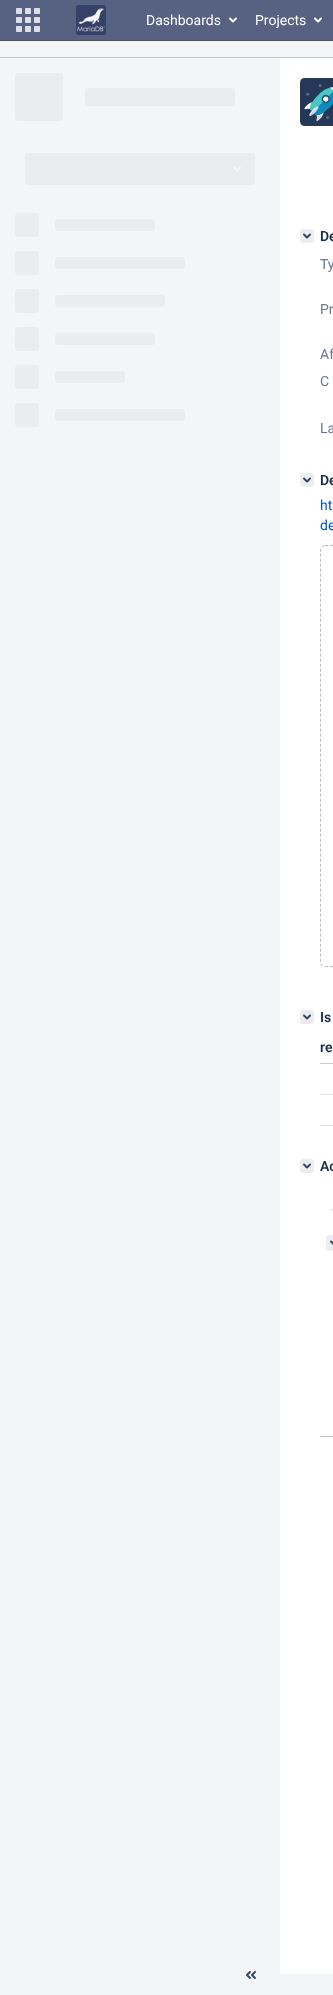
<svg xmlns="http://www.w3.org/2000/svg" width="333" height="1995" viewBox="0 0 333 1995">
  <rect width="100%" height="100%" fill="#f4f5f7"/>
  <rect x="0" y="0" width="333" height="40" fill="#576181"/>
  <rect x="0" y="40" width="333" height="1" fill="#525254"/>
  <image x="16" y="8" width="24" height="24" href="img1.png"/>
  <image x="76" y="5" width="30" height="30" href="img2.png"/>
  <text x="146" y="25" font-family="Roboto" font-size="14" fill="#ffffff">Dashboards</text>
  <image x="229" y="17" width="8" height="6" href="img3.png"/>
  <text x="255" y="25" font-family="Roboto" font-size="14" fill="#ffffff">Projects</text>
  <image x="314" y="17" width="8" height="6" href="img3.png"/>
  <rect x="0" y="57" width="333" height="1" fill="#c1c7d0"/>
  <image x="15" y="73" width="240" height="354" href="img4.png"/>
  <image x="246" y="1971" width="10" height="8" href="img5.png"/>
  <rect x="280" y="58" width="53" height="1916" fill="#ffffff"/>
  <image x="300" y="78" width="33" height="48" href="img6.png"/>
  <rect x="300" y="229" width="14" height="14" rx="3" fill="#ebedf0"/>
  <image x="303" y="233" width="8" height="6" href="img7.png"/>
  <text x="320" y="241" font-family="Roboto" font-size="14" font-weight="600" fill="#172b4d">De</text>
  <text x="320" y="269" font-family="Roboto" font-size="14" fill="#6b778c">Ty</text>
  <text x="320" y="314" font-family="Roboto" font-size="14" fill="#6b778c">Pr</text>
  <text x="320" y="359" font-family="Roboto" font-size="14" fill="#6b778c">Af</text>
  <text x="320" y="386" font-family="Roboto" font-size="14" fill="#6b778c">C</text>
  <text x="320" y="433" font-family="Roboto" font-size="14" fill="#6b778c">La</text>
  <rect x="300" y="473" width="14" height="14" rx="3" fill="#ebedf0"/>
  <image x="303" y="477" width="8" height="6" href="img7.png"/>
  <text x="320" y="485" font-family="Roboto" font-size="14" font-weight="600" fill="#172b4d">De</text>
  <text x="320" y="510" font-family="Roboto" font-size="14" fill="#0052cc">ht</text>
  <text x="320" y="530" font-family="Roboto" font-size="14" fill="#0052cc">de</text>
  <path d="M325 545.5H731C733.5 545.5 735.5 547.5 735.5 550V962C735.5 964.5 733.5 966.5 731 966.5H325C322.5 966.5 320.5 964.5 320.5 962V550C320.5 547.5 322.5 545.5 325 545.5Z" fill="none" stroke="#bbbbbb" stroke-dasharray="3 2"/>
  <rect x="300" y="1010" width="14" height="14" rx="3" fill="#ebedf0"/>
  <image x="303" y="1014" width="8" height="6" href="img7.png"/>
  <text x="320" y="1022" font-family="Roboto" font-size="14" font-weight="600" fill="#172b4d">Is</text>
  <text x="320" y="1052" font-family="Roboto" font-size="14" font-weight="600" fill="#172b4d">re</text>
  <rect x="320" y="1063" width="13" height="1" fill="#cccccc"/>
  <rect x="320" y="1094" width="13" height="1" fill="#dfe1e5"/>
  <rect x="320" y="1125" width="13" height="1" fill="#dfe1e5"/>
  <rect x="300" y="1159" width="14" height="14" rx="3" fill="#ebedf0"/>
  <image x="303" y="1163" width="8" height="6" href="img7.png"/>
  <text x="320" y="1171" font-family="Roboto" font-size="14" font-weight="600" fill="#172b4d">Ac</text>
  <rect x="330" y="1209" width="3" height="2" fill="#ebecf0"/>
  <rect x="320" y="1436" width="13" height="1" fill="#c1c7d0"/>
  <rect x="326" y="1235" width="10" height="16" rx="3" fill="#ebedf0"/>
  <image x="330" y="1240" width="3" height="5" href="img8.png"/>
</svg>
